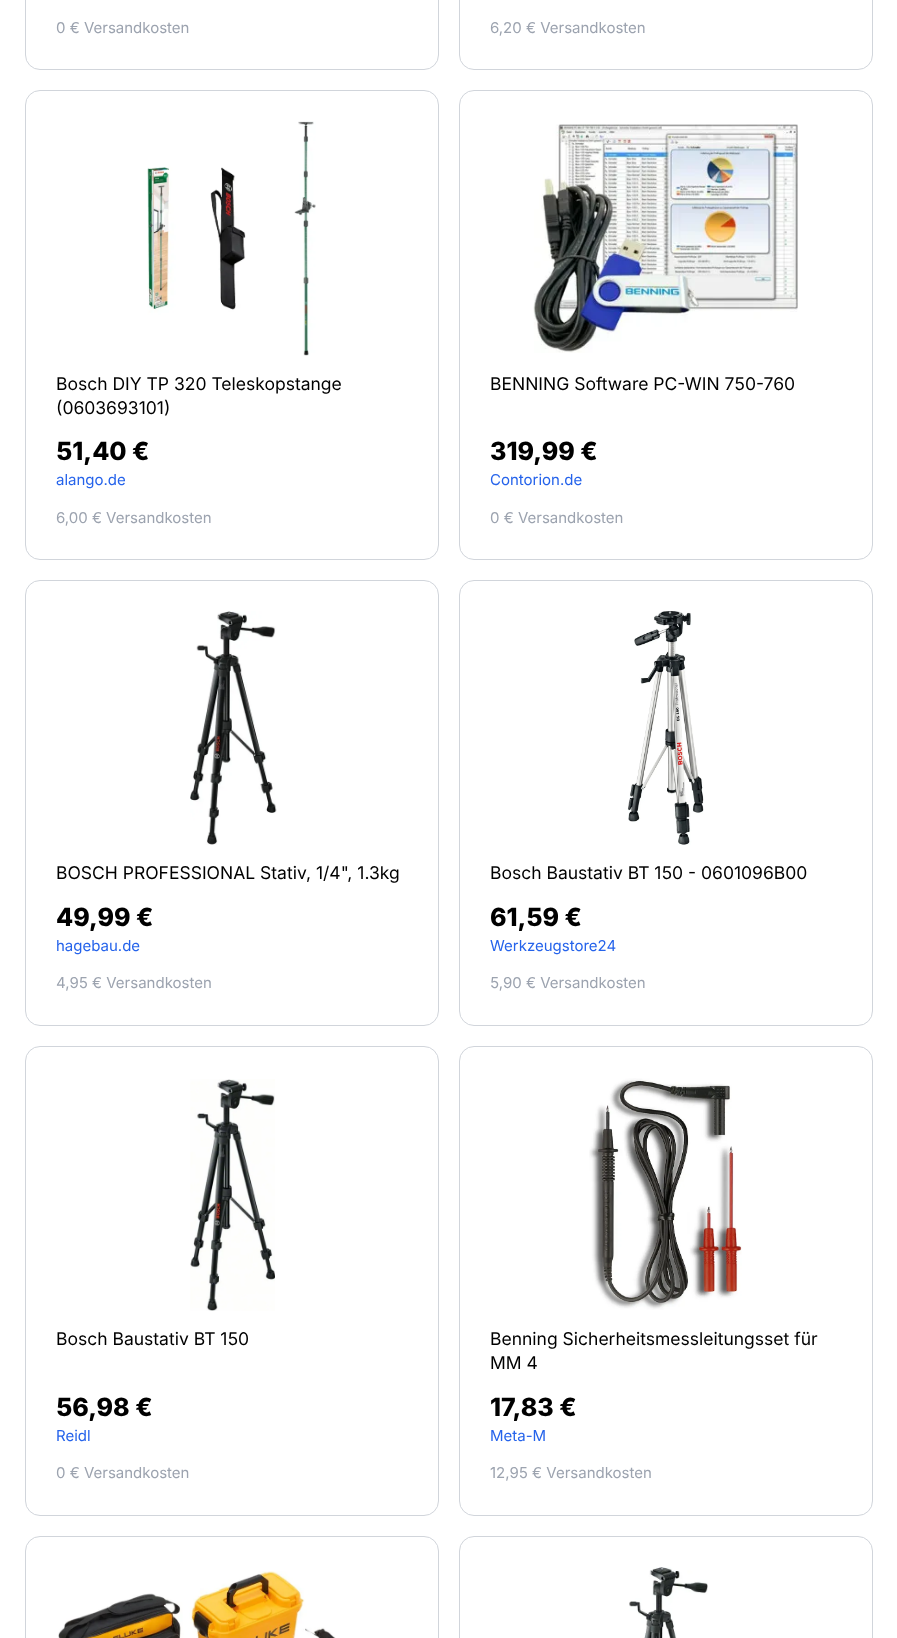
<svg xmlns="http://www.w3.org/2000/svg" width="897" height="1638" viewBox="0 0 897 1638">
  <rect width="100%" height="100%" fill="#ffffff"/>
  <rect x="25.5" y="-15.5" width="413" height="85" rx="14.5" fill="none" stroke="#d1d5db"/>
  <text x="56" y="33" font-family="Inter" font-size="15" fill="#9ca3af">0 € Versandkosten</text>
  <rect x="459.5" y="-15.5" width="413" height="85" rx="14.5" fill="none" stroke="#d1d5db"/>
  <text x="490" y="33" font-family="Inter" font-size="15" fill="#9ca3af">6,20 € Versandkosten</text>
  <rect x="25.5" y="90.5" width="413" height="469" rx="14.5" fill="none" stroke="#d1d5db"/>
  <image x="147" y="121" width="169" height="235" href="img1.png"/>
  <text x="56" y="390" font-family="Inter" font-size="17.5" fill="#000000">Bosch DIY TP 320 Teleskopstange</text>
  <text x="56" y="414" font-family="Inter" font-size="17.5" fill="#000000">(0603693101)</text>
  <text x="56" y="460" font-family="Inter" font-size="25" font-weight="800" fill="#000000">51,40 €</text>
  <text x="56" y="485" font-family="Inter" font-size="15" fill="#2563eb">alango.de</text>
  <text x="56" y="523" font-family="Inter" font-size="15" fill="#9ca3af">6,00 € Versandkosten</text>
  <rect x="459.5" y="90.5" width="413" height="469" rx="14.5" fill="none" stroke="#d1d5db"/>
  <image x="533" y="124" width="265" height="229" href="img2.png"/>
  <text x="490" y="390" font-family="Inter" font-size="17.5" fill="#000000">BENNING Software PC-WIN 750-760</text>
  <text x="490" y="460" font-family="Inter" font-size="25" font-weight="800" fill="#000000">319,99 €</text>
  <text x="490" y="485" font-family="Inter" font-size="15" fill="#2563eb">Contorion.de</text>
  <text x="490" y="523" font-family="Inter" font-size="15" fill="#9ca3af">0 € Versandkosten</text>
  <rect x="25.5" y="580.5" width="413" height="445" rx="14.5" fill="none" stroke="#d1d5db"/>
  <image x="190" y="611" width="87" height="234" href="img3.png"/>
  <text x="56" y="879" font-family="Inter" font-size="17.5" fill="#000000">BOSCH PROFESSIONAL Stativ, 1/4", 1.3kg</text>
  <text x="56" y="926" font-family="Inter" font-size="25" font-weight="800" fill="#000000">49,99 €</text>
  <text x="56" y="951" font-family="Inter" font-size="15" fill="#2563eb">hagebau.de</text>
  <text x="56" y="988" font-family="Inter" font-size="15" fill="#9ca3af">4,95 € Versandkosten</text>
  <rect x="459.5" y="580.5" width="413" height="445" rx="14.5" fill="none" stroke="#d1d5db"/>
  <image x="627" y="611" width="77" height="234" href="img4.png"/>
  <text x="490" y="879" font-family="Inter" font-size="17.5" fill="#000000">Bosch Baustativ BT 150 - 0601096B00</text>
  <text x="490" y="926" font-family="Inter" font-size="25" font-weight="800" fill="#000000">61,59 €</text>
  <text x="490" y="951" font-family="Inter" font-size="15" fill="#2563eb">Werkzeugstore24</text>
  <text x="490" y="988" font-family="Inter" font-size="15" fill="#9ca3af">5,90 € Versandkosten</text>
  <rect x="25.5" y="1046.5" width="413" height="469" rx="14.5" fill="none" stroke="#d1d5db"/>
  <image x="190" y="1079" width="85" height="232" href="img5.png"/>
  <text x="56" y="1345" font-family="Inter" font-size="17.5" fill="#000000">Bosch Baustativ BT 150</text>
  <text x="56" y="1416" font-family="Inter" font-size="25" font-weight="800" fill="#000000">56,98 €</text>
  <text x="56" y="1441" font-family="Inter" font-size="15" fill="#2563eb">Reidl</text>
  <text x="56" y="1478" font-family="Inter" font-size="15" fill="#9ca3af">0 € Versandkosten</text>
  <rect x="459.5" y="1046.5" width="413" height="469" rx="14.5" fill="none" stroke="#d1d5db"/>
  <image x="589" y="1078" width="153" height="232" href="img6.png"/>
  <text x="490" y="1345" font-family="Inter" font-size="17.5" fill="#000000">Benning Sicherheitsmessleitungsset für</text>
  <text x="490" y="1369" font-family="Inter" font-size="17.5" fill="#000000">MM 4</text>
  <text x="490" y="1416" font-family="Inter" font-size="25" font-weight="800" fill="#000000">17,83 €</text>
  <text x="490" y="1441" font-family="Inter" font-size="15" fill="#2563eb">Meta-M</text>
  <text x="490" y="1478" font-family="Inter" font-size="15" fill="#9ca3af">12,95 € Versandkosten</text>
  <rect x="25.5" y="1536.5" width="413" height="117" rx="14.5" fill="none" stroke="#d1d5db"/>
  <image x="58" y="1571" width="278" height="67" href="img7.png"/>
  <rect x="459.5" y="1536.5" width="413" height="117" rx="14.5" fill="none" stroke="#d1d5db"/>
  <image x="629" y="1567" width="79" height="71" href="img8.png"/>
</svg>
